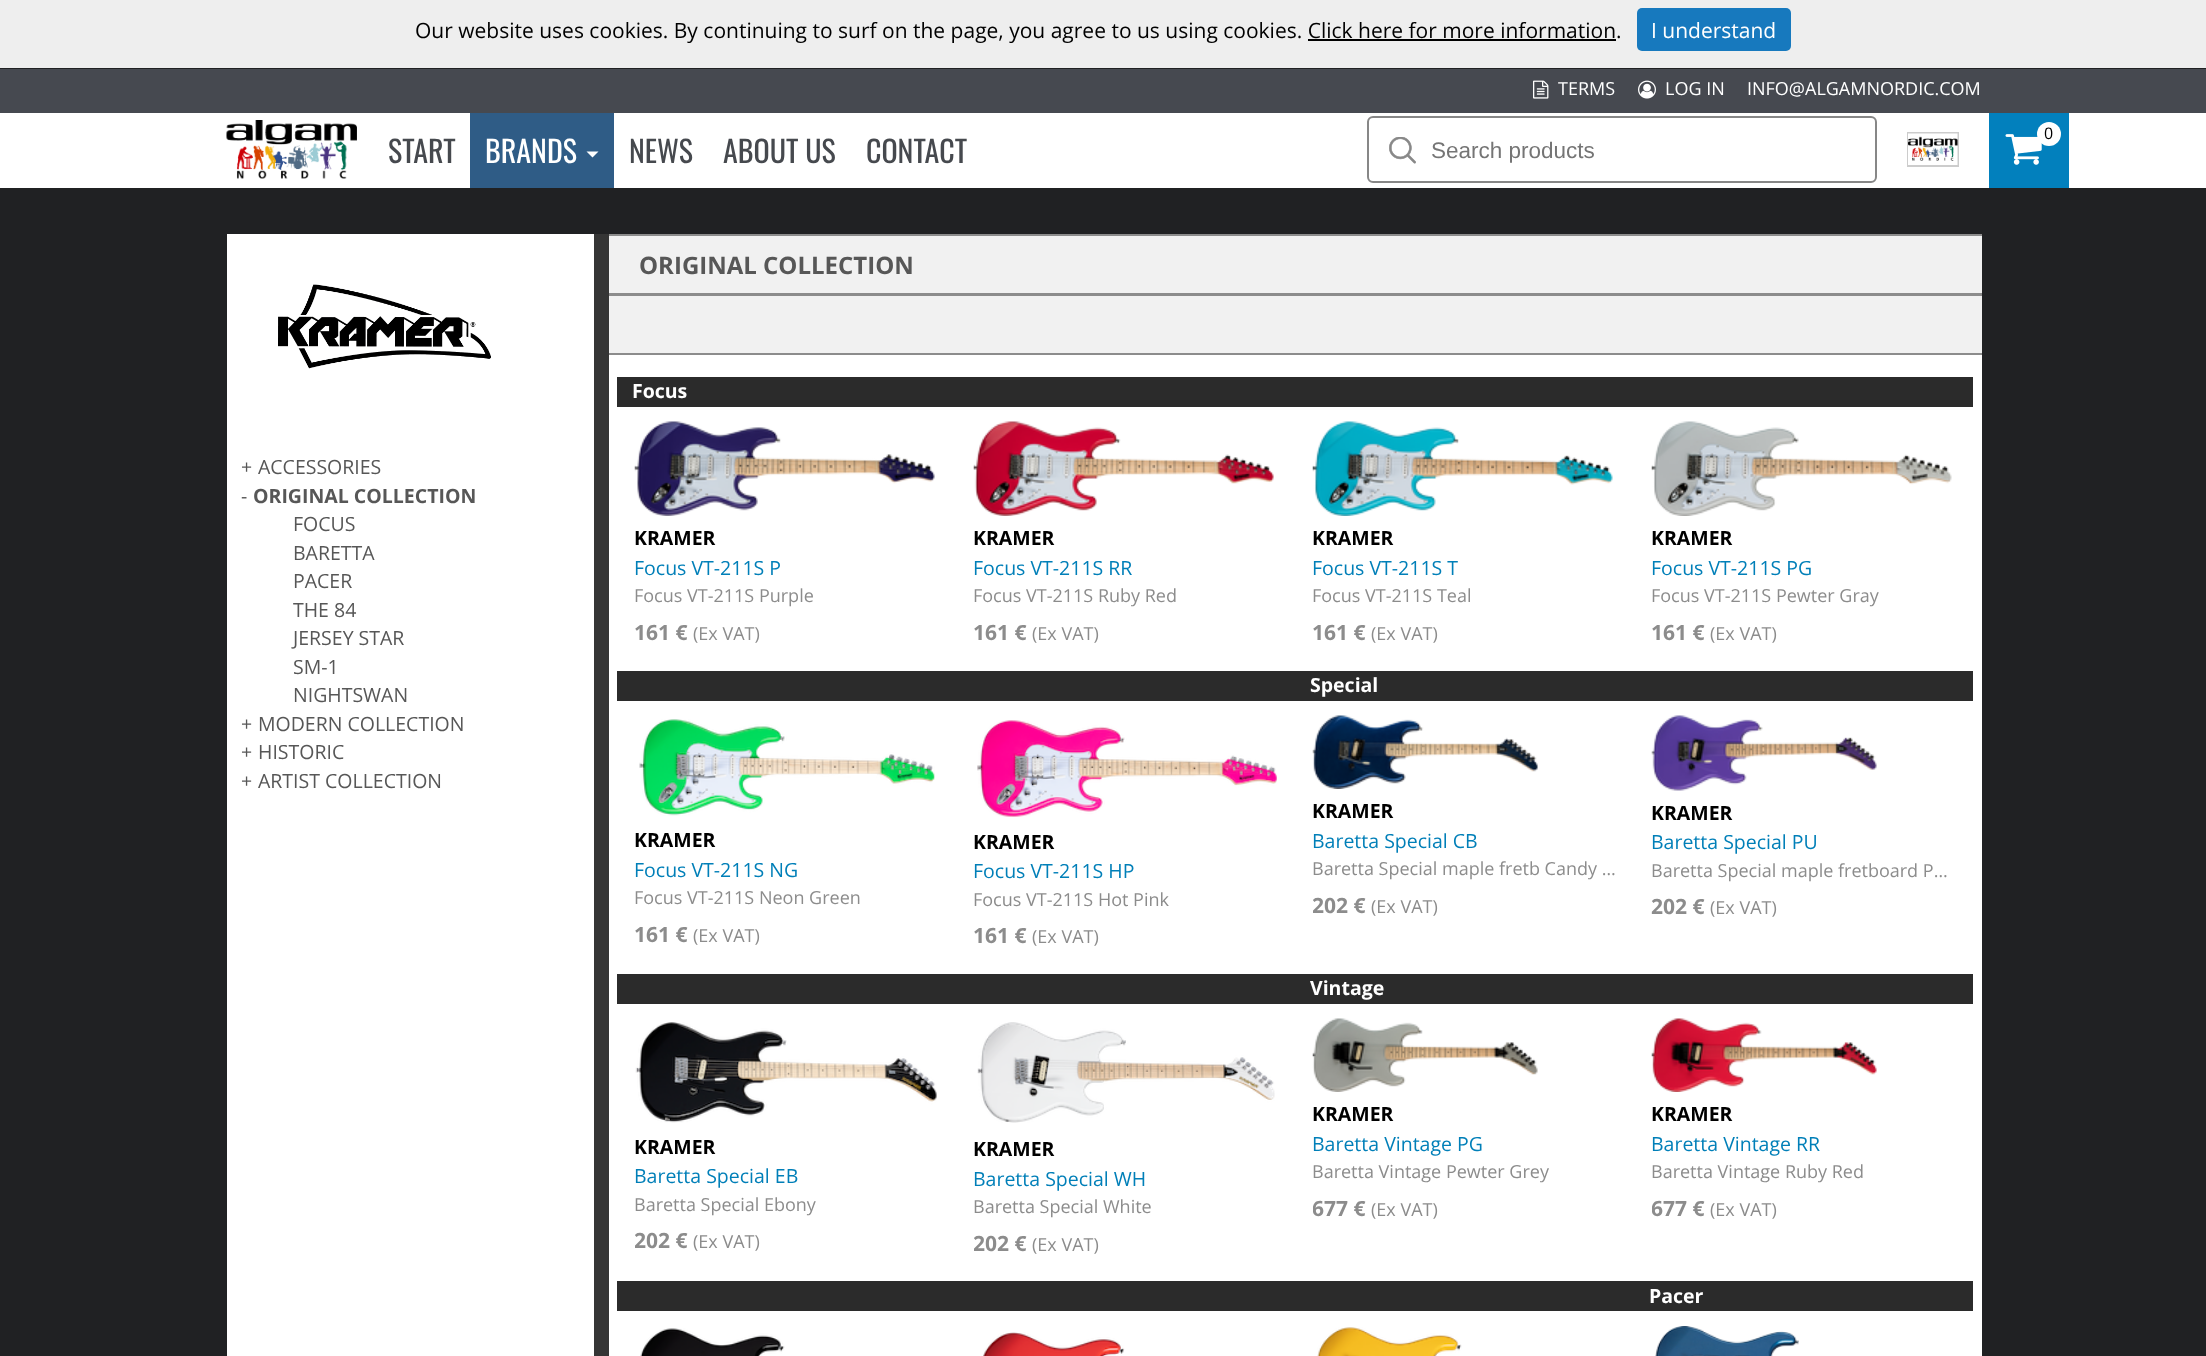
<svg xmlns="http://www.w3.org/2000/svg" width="2206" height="1356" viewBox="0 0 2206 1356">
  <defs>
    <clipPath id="clip1"><rect x="1313" y="701" width="304" height="273"/></clipPath>
    <clipPath id="clip2"><rect x="635" y="1004" width="304" height="277"/></clipPath>
    <clipPath id="clip3"><rect x="974" y="1004" width="304" height="277"/></clipPath>
    <clipPath id="clip4"><rect x="1313" y="1004" width="304" height="277"/></clipPath>
    <clipPath id="clip5"><rect x="1652" y="1004" width="304" height="277"/></clipPath>
  </defs>
  <rect width="100%" height="100%" fill="#202123"/>
  <rect x="0" y="0" width="2206" height="68" fill="#eeeeee"/>
  <text x="415" y="38" font-family="Open Sans" font-size="21" fill="#000000">Our website uses cookies. By continuing to surf on the page, you agree to us using cookies. Click here for more information.</text>
  <rect x="1308" y="39" width="308" height="2" fill="#000000"/>
  <rect x="1637" y="8" width="154" height="43" rx="5" fill="#1779be"/>
  <text x="1651" y="38" font-family="Open Sans" font-size="21" fill="#ffffff">I understand</text>
  <rect x="0" y="69" width="2206" height="44" fill="#464950"/>
  <image x="1533" y="80" width="16" height="19" href="img1.png"/>
  <text x="1558" y="95" font-family="Open Sans" font-size="18" fill="#ffffff">TERMS</text>
  <image x="1638" y="80" width="18" height="19" href="img2.png"/>
  <text x="1665" y="95" font-family="Open Sans" font-size="18" fill="#ffffff">LOG IN</text>
  <text x="1747" y="95" font-family="Open Sans" font-size="18" fill="#ffffff">INFO@ALGAMNORDIC.COM</text>
  <rect x="0" y="113" width="2206" height="75" fill="#ffffff"/>
  <image x="226" y="120" width="131" height="59" href="img3.png"/>
  <text x="388" y="163" font-family="Oswald" font-size="30" fill="#46494e">START</text>
  <rect x="470" y="113" width="144" height="75" fill="#2f5c86"/>
  <text x="485" y="163" font-family="Oswald" font-size="30" fill="#ffffff">BRANDS</text>
  <path d="M586.5 151.5H598.5L592.5 157.5Z" fill="#ffffff"/>
  <text x="629" y="163" font-family="Oswald" font-size="30" fill="#46494e">NEWS</text>
  <text x="723" y="163" font-family="Oswald" font-size="30" fill="#46494e">ABOUT US</text>
  <text x="866" y="163" font-family="Oswald" font-size="30" fill="#46494e">CONTACT</text>
  <rect x="1368" y="117" width="508" height="65" rx="5" fill="none" stroke="#878787" stroke-width="2"/>
  <image x="1389" y="137" width="27" height="27" href="img4.png"/>
  <text x="1431" y="158" font-family="Liberation Sans" font-size="22.5" fill="#757575">Search products</text>
  <rect x="1908" y="133" width="50" height="33" fill="none" stroke="#cccccc" stroke-width="2"/>
  <image x="1908" y="133" width="50" height="32" href="img5.png"/>
  <rect x="1989" y="113" width="80" height="75" fill="#0280bd"/>
  <image x="2005" y="134" width="37" height="31" href="img6.png"/>
  <circle cx="2049" cy="134" r="12" fill="#ffffff"/>
  <text x="2044" y="139" font-family="Open Sans" font-size="16" fill="#000000">0</text>
  <rect x="227" y="234" width="1755" height="1122" fill="#ffffff"/>
  <image x="278" y="284" width="213" height="85" href="img7.png"/>
  <text x="241" y="474" font-family="Open Sans" font-size="19.5" fill="#575757">+</text>
  <text x="258" y="474" font-family="Open Sans" font-size="19.5" fill="#575757">ACCESSORIES</text>
  <text x="241" y="503" font-family="Open Sans" font-size="19.5" fill="#575757">-</text>
  <text x="253" y="503" font-family="Open Sans" font-size="19.5" font-weight="bold" fill="#575757">ORIGINAL COLLECTION</text>
  <text x="293" y="531" font-family="Open Sans" font-size="19.5" fill="#575757">FOCUS</text>
  <text x="293" y="560" font-family="Open Sans" font-size="19.5" fill="#575757">BARETTA</text>
  <text x="293" y="588" font-family="Open Sans" font-size="19.5" fill="#575757">PACER</text>
  <text x="293" y="617" font-family="Open Sans" font-size="19.5" fill="#575757">THE 84</text>
  <text x="293" y="645" font-family="Open Sans" font-size="19.5" fill="#575757">JERSEY STAR</text>
  <text x="293" y="674" font-family="Open Sans" font-size="19.5" fill="#575757">SM-1</text>
  <text x="293" y="702" font-family="Open Sans" font-size="19.5" fill="#575757">NIGHTSWAN</text>
  <text x="241" y="731" font-family="Open Sans" font-size="19.5" fill="#575757">+</text>
  <text x="258" y="731" font-family="Open Sans" font-size="19.5" fill="#575757">MODERN COLLECTION</text>
  <text x="241" y="759" font-family="Open Sans" font-size="19.5" fill="#575757">+</text>
  <text x="258" y="759" font-family="Open Sans" font-size="19.5" fill="#575757">HISTORIC</text>
  <text x="241" y="788" font-family="Open Sans" font-size="19.5" fill="#575757">+</text>
  <text x="258" y="788" font-family="Open Sans" font-size="19.5" fill="#575757">ARTIST COLLECTION</text>
  <rect x="594" y="234" width="15" height="1122" fill="#353535"/>
  <rect x="609" y="236" width="1373" height="57" fill="#f1f1f1"/>
  <rect x="609" y="234" width="1373" height="2" fill="#8c8c8c"/>
  <rect x="609" y="293" width="1373" height="3" fill="#8c8c8c"/>
  <text x="639" y="274" font-family="Open Sans" font-size="24" font-weight="bold" fill="#575757">ORIGINAL COLLECTION</text>
  <rect x="609" y="296" width="1373" height="57" fill="#f1f1f1"/>
  <rect x="609" y="353" width="1373" height="2" fill="#8c8c8c"/>
  <rect x="617" y="377" width="1356" height="30" fill="#2b2b2b"/>
  <text x="632" y="398" font-family="Open Sans" font-size="19.5" font-weight="bold" fill="#ffffff">Focus</text>
  <image x="634" y="421" width="301" height="95" href="img8.png"/>
  <text x="634" y="545" font-family="Open Sans" font-size="19.5" font-weight="bold" fill="#000000">KRAMER</text>
  <text x="634" y="575" font-family="Open Sans" font-size="19.5" fill="#007fb8">Focus VT-211S P</text>
  <text x="634" y="602" font-family="Open Sans" font-size="18" fill="#8c8c8c">Focus VT-211S Purple</text>
  <text x="634" y="640" font-family="Open Sans" font-size="21" font-weight="bold" fill="#8c8c8c">161 €</text>
  <text x="693" y="640" font-family="Open Sans" font-size="18" fill="#8c8c8c">(Ex VAT)</text>
  <image x="973" y="421" width="301" height="95" href="img9.png"/>
  <text x="973" y="545" font-family="Open Sans" font-size="19.5" font-weight="bold" fill="#000000">KRAMER</text>
  <text x="973" y="575" font-family="Open Sans" font-size="19.5" fill="#007fb8">Focus VT-211S RR</text>
  <text x="973" y="602" font-family="Open Sans" font-size="18" fill="#8c8c8c">Focus VT-211S Ruby Red</text>
  <text x="973" y="640" font-family="Open Sans" font-size="21" font-weight="bold" fill="#8c8c8c">161 €</text>
  <text x="1032" y="640" font-family="Open Sans" font-size="18" fill="#8c8c8c">(Ex VAT)</text>
  <image x="1312" y="421" width="301" height="95" href="img10.png"/>
  <text x="1312" y="545" font-family="Open Sans" font-size="19.5" font-weight="bold" fill="#000000">KRAMER</text>
  <text x="1312" y="575" font-family="Open Sans" font-size="19.5" fill="#007fb8">Focus VT-211S T</text>
  <text x="1312" y="602" font-family="Open Sans" font-size="18" fill="#8c8c8c">Focus VT-211S Teal</text>
  <text x="1312" y="640" font-family="Open Sans" font-size="21" font-weight="bold" fill="#8c8c8c">161 €</text>
  <text x="1371" y="640" font-family="Open Sans" font-size="18" fill="#8c8c8c">(Ex VAT)</text>
  <image x="1651" y="421" width="301" height="95" href="img11.png"/>
  <text x="1651" y="545" font-family="Open Sans" font-size="19.5" font-weight="bold" fill="#000000">KRAMER</text>
  <text x="1651" y="575" font-family="Open Sans" font-size="19.5" fill="#007fb8">Focus VT-211S PG</text>
  <text x="1651" y="602" font-family="Open Sans" font-size="18" fill="#8c8c8c">Focus VT-211S Pewter Gray</text>
  <text x="1651" y="640" font-family="Open Sans" font-size="21" font-weight="bold" fill="#8c8c8c">161 €</text>
  <text x="1710" y="640" font-family="Open Sans" font-size="18" fill="#8c8c8c">(Ex VAT)</text>
  <rect x="617" y="671" width="1356" height="30" fill="#2b2b2b"/>
  <image x="639" y="719" width="296" height="97" href="img12.png"/>
  <text x="634" y="847" font-family="Open Sans" font-size="19.5" font-weight="bold" fill="#000000">KRAMER</text>
  <text x="634" y="877" font-family="Open Sans" font-size="19.5" fill="#007fb8">Focus VT-211S NG</text>
  <text x="634" y="904" font-family="Open Sans" font-size="18" fill="#8c8c8c">Focus VT-211S Neon Green</text>
  <text x="634" y="942" font-family="Open Sans" font-size="21" font-weight="bold" fill="#8c8c8c">161 €</text>
  <text x="693" y="942" font-family="Open Sans" font-size="18" fill="#8c8c8c">(Ex VAT)</text>
  <image x="977" y="720" width="300" height="97" href="img13.png"/>
  <text x="973" y="849" font-family="Open Sans" font-size="19.5" font-weight="bold" fill="#000000">KRAMER</text>
  <text x="973" y="878" font-family="Open Sans" font-size="19.5" fill="#007fb8">Focus VT-211S HP</text>
  <text x="973" y="906" font-family="Open Sans" font-size="18" fill="#8c8c8c">Focus VT-211S Hot Pink</text>
  <text x="973" y="943" font-family="Open Sans" font-size="21" font-weight="bold" fill="#8c8c8c">161 €</text>
  <text x="1032" y="943" font-family="Open Sans" font-size="18" fill="#8c8c8c">(Ex VAT)</text>
  <text x="1310" y="692" font-family="Open Sans" font-size="19.5" font-weight="bold" fill="#ffffff">Special</text>
  <image x="1312" y="715" width="226" height="74" href="img14.png"/>
  <text x="1312" y="818" font-family="Open Sans" font-size="19.5" font-weight="bold" fill="#000000">KRAMER</text>
  <text x="1312" y="848" font-family="Open Sans" font-size="19.5" fill="#007fb8">Baretta Special CB</text>
  <text x="1312" y="875" font-family="Open Sans" font-size="18" fill="#8c8c8c">Baretta Special maple fretb Candy …</text>
  <g clip-path="url(#clip1)">
    <text x="1312" y="913" font-family="Open Sans" font-size="21" font-weight="bold" fill="#8c8c8c">202 €</text>
  </g>
  <text x="1371" y="913" font-family="Open Sans" font-size="18" fill="#8c8c8c">(Ex VAT)</text>
  <image x="1651" y="715" width="226" height="76" href="img15.png"/>
  <text x="1651" y="820" font-family="Open Sans" font-size="19.5" font-weight="bold" fill="#000000">KRAMER</text>
  <text x="1651" y="849" font-family="Open Sans" font-size="19.5" fill="#007fb8">Baretta Special PU</text>
  <text x="1651" y="877" font-family="Open Sans" font-size="18" fill="#8c8c8c">Baretta Special maple fretboard P…</text>
  <text x="1651" y="914" font-family="Open Sans" font-size="21" font-weight="bold" fill="#8c8c8c">202 €</text>
  <text x="1710" y="914" font-family="Open Sans" font-size="18" fill="#8c8c8c">(Ex VAT)</text>
  <rect x="617" y="974" width="1356" height="30" fill="#2b2b2b"/>
  <image x="635" y="1022" width="302" height="101" href="img16.png"/>
  <text x="634" y="1154" font-family="Open Sans" font-size="19.5" font-weight="bold" fill="#000000">KRAMER</text>
  <text x="634" y="1183" font-family="Open Sans" font-size="19.5" fill="#007fb8">Baretta Special EB</text>
  <text x="634" y="1211" font-family="Open Sans" font-size="18" fill="#8c8c8c">Baretta Special Ebony</text>
  <g clip-path="url(#clip2)">
    <text x="634" y="1248" font-family="Open Sans" font-size="21" font-weight="bold" fill="#8c8c8c">202 €</text>
  </g>
  <text x="693" y="1248" font-family="Open Sans" font-size="18" fill="#8c8c8c">(Ex VAT)</text>
  <image x="977" y="1022" width="298" height="101" href="img17.png"/>
  <text x="973" y="1156" font-family="Open Sans" font-size="19.5" font-weight="bold" fill="#000000">KRAMER</text>
  <text x="973" y="1186" font-family="Open Sans" font-size="19.5" fill="#007fb8">Baretta Special WH</text>
  <text x="973" y="1213" font-family="Open Sans" font-size="18" fill="#8c8c8c">Baretta Special White</text>
  <g clip-path="url(#clip3)">
    <text x="973" y="1251" font-family="Open Sans" font-size="21" font-weight="bold" fill="#8c8c8c">202 €</text>
  </g>
  <text x="1032" y="1251" font-family="Open Sans" font-size="18" fill="#8c8c8c">(Ex VAT)</text>
  <text x="1310" y="995" font-family="Open Sans" font-size="19.5" font-weight="bold" fill="#ffffff">Vintage</text>
  <image x="1312" y="1018" width="226" height="74" href="img18.png"/>
  <text x="1312" y="1121" font-family="Open Sans" font-size="19.5" font-weight="bold" fill="#000000">KRAMER</text>
  <text x="1312" y="1151" font-family="Open Sans" font-size="19.5" fill="#007fb8">Baretta Vintage PG</text>
  <text x="1312" y="1178" font-family="Open Sans" font-size="18" fill="#8c8c8c">Baretta Vintage Pewter Grey</text>
  <g clip-path="url(#clip4)">
    <text x="1312" y="1216" font-family="Open Sans" font-size="21" font-weight="bold" fill="#8c8c8c">677 €</text>
  </g>
  <text x="1371" y="1216" font-family="Open Sans" font-size="18" fill="#8c8c8c">(Ex VAT)</text>
  <image x="1651" y="1018" width="226" height="74" href="img19.png"/>
  <text x="1651" y="1121" font-family="Open Sans" font-size="19.5" font-weight="bold" fill="#000000">KRAMER</text>
  <text x="1651" y="1151" font-family="Open Sans" font-size="19.5" fill="#007fb8">Baretta Vintage RR</text>
  <text x="1651" y="1178" font-family="Open Sans" font-size="18" fill="#8c8c8c">Baretta Vintage Ruby Red</text>
  <g clip-path="url(#clip5)">
    <text x="1651" y="1216" font-family="Open Sans" font-size="21" font-weight="bold" fill="#8c8c8c">677 €</text>
  </g>
  <text x="1710" y="1216" font-family="Open Sans" font-size="18" fill="#8c8c8c">(Ex VAT)</text>
  <rect x="617" y="1281" width="1356" height="30" fill="#2b2b2b"/>
  <image x="640" y="1328" width="145" height="28" href="img20.png"/>
  <text x="1649" y="1303" font-family="Open Sans" font-size="19.5" font-weight="bold" fill="#ffffff">Pacer</text>
  <image x="1655" y="1326" width="144" height="30" href="img21.png"/>
  <image x="983" y="1332" width="142" height="24" href="img22.png"/>
  <image x="1317" y="1327" width="145" height="29" href="img23.png"/>
</svg>
